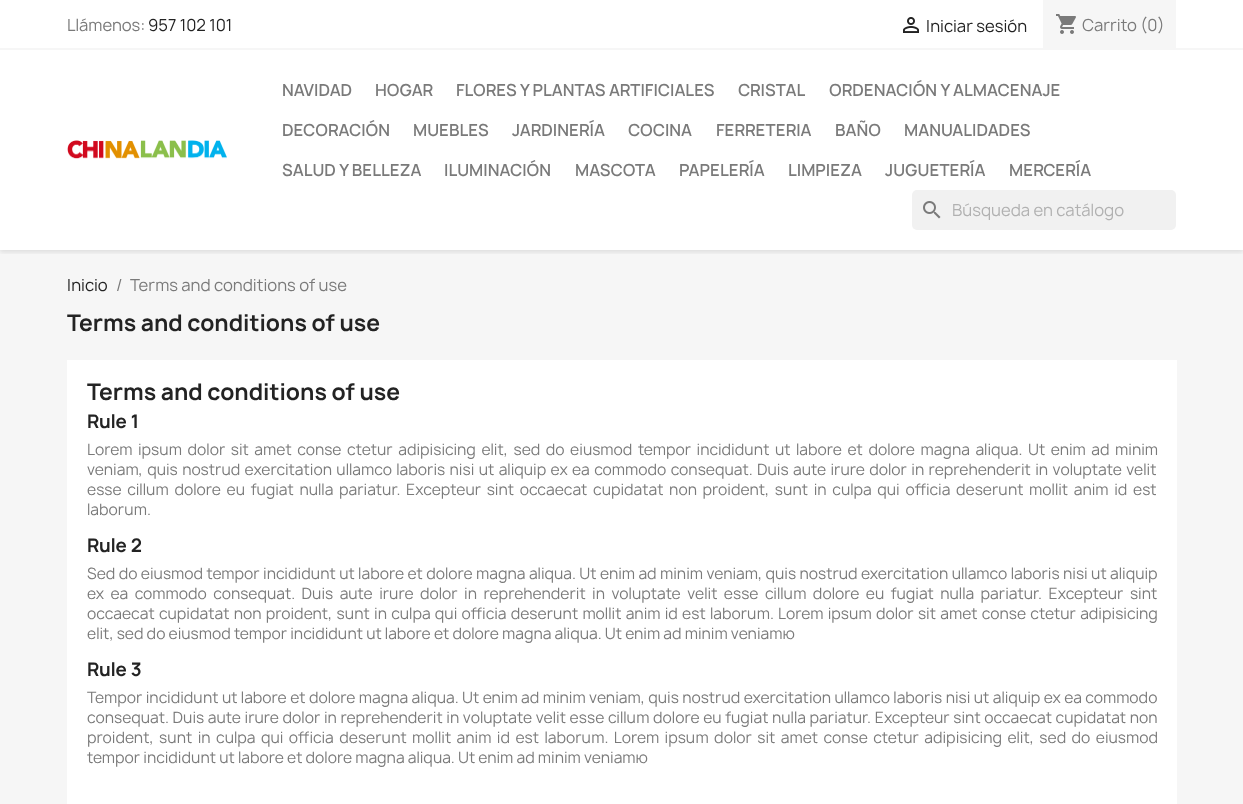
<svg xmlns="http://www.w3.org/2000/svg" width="1243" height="804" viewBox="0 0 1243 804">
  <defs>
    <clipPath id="clip1"><rect x="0" y="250" width="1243" height="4"/></clipPath>
    <filter id="blur1" x="-50%" y="-200%" width="200%" height="500%"><feGaussianBlur stdDeviation="2.5"/></filter>
  </defs>
  <rect width="100%" height="100%" fill="#ffffff"/>
  <rect x="0" y="250" width="1243" height="554" fill="#f6f6f6"/>
  <g clip-path="url(#clip1)">
    <rect x="0" y="2" width="1243" height="250" fill="#000000" fill-opacity="0.11" filter="url(#blur1)"/>
  </g>
  <rect x="0" y="48" width="1243" height="2" fill="#f6f6f6"/>
  <text x="67" y="31" font-family="Manrope" font-size="16" fill="#7a7a7a">Llámenos:</text>
  <text x="148" y="31" font-family="Manrope" font-size="16" fill="#232323">957 102 101</text>
  <image x="903" y="17" width="16" height="16" href="img1.png"/>
  <text x="926" y="32" font-family="Manrope" font-size="16" fill="#232323">Iniciar sesión</text>
  <rect x="1043" y="0" width="133" height="48" fill="#f6f6f6"/>
  <image x="1056" y="14" width="20" height="20" href="img2.png"/>
  <text x="1082" y="31" font-family="Manrope" font-size="16" fill="#7a7a7a">Carrito (0)</text>
  <image x="67" y="140" width="160" height="19" href="img3.png"/>
  <text x="282" y="96" font-family="Manrope" font-size="16" font-weight="600" fill="#7a7a7a">NAVIDAD</text>
  <text x="375" y="96" font-family="Manrope" font-size="16" font-weight="600" fill="#7a7a7a">HOGAR</text>
  <text x="456" y="96" font-family="Manrope" font-size="16" font-weight="600" fill="#7a7a7a">FLORES Y PLANTAS ARTIFICIALES</text>
  <text x="738" y="96" font-family="Manrope" font-size="16" font-weight="600" fill="#7a7a7a">CRISTAL</text>
  <text x="829" y="96" font-family="Manrope" font-size="16" font-weight="600" fill="#7a7a7a">ORDENACIÓN Y ALMACENAJE</text>
  <text x="282" y="136" font-family="Manrope" font-size="16" font-weight="600" fill="#7a7a7a">DECORACIÓN</text>
  <text x="413" y="136" font-family="Manrope" font-size="16" font-weight="600" fill="#7a7a7a">MUEBLES</text>
  <text x="512" y="136" font-family="Manrope" font-size="16" font-weight="600" fill="#7a7a7a">JARDINERÍA</text>
  <text x="628" y="136" font-family="Manrope" font-size="16" font-weight="600" fill="#7a7a7a">COCINA</text>
  <text x="716" y="136" font-family="Manrope" font-size="16" font-weight="600" fill="#7a7a7a">FERRETERIA</text>
  <text x="835" y="136" font-family="Manrope" font-size="16" font-weight="600" fill="#7a7a7a">BAÑO</text>
  <text x="904" y="136" font-family="Manrope" font-size="16" font-weight="600" fill="#7a7a7a">MANUALIDADES</text>
  <text x="282" y="176" font-family="Manrope" font-size="16" font-weight="600" fill="#7a7a7a">SALUD Y BELLEZA</text>
  <text x="444" y="176" font-family="Manrope" font-size="16" font-weight="600" fill="#7a7a7a">ILUMINACIÓN</text>
  <text x="575" y="176" font-family="Manrope" font-size="16" font-weight="600" fill="#7a7a7a">MASCOTA</text>
  <text x="679" y="176" font-family="Manrope" font-size="16" font-weight="600" fill="#7a7a7a">PAPELERÍA</text>
  <text x="788" y="176" font-family="Manrope" font-size="16" font-weight="600" fill="#7a7a7a">LIMPIEZA</text>
  <text x="885" y="176" font-family="Manrope" font-size="16" font-weight="600" fill="#7a7a7a">JUGUETERÍA</text>
  <text x="1009" y="176" font-family="Manrope" font-size="16" font-weight="600" fill="#7a7a7a">MERCERÍA</text>
  <rect x="912" y="190" width="264" height="40" rx="5" fill="#f1f1f1"/>
  <image x="923" y="201" width="18" height="18" href="img4.png"/>
  <text x="952" y="216" font-family="Manrope" font-size="16" fill="#b1b1b1">Búsqueda en catálogo</text>
  <text x="67" y="291" font-family="Manrope" font-size="16" fill="#232323">Inicio</text>
  <text x="116" y="291" font-family="Manrope" font-size="16" fill="#7a7a7a">/</text>
  <text x="130" y="291" font-family="Manrope" font-size="16" fill="#7a7a7a">Terms and conditions of use</text>
  <text x="67" y="331" font-family="Manrope" font-size="22" font-weight="bold" fill="#232323">Terms and conditions of use</text>
  <rect x="67" y="360" width="1110" height="444" fill="#ffffff"/>
  <text x="87" y="400" font-family="Manrope" font-size="22" font-weight="bold" fill="#232323">Terms and conditions of use</text>
  <text x="87" y="428" font-family="Manrope" font-size="18" font-weight="bold" fill="#232323">Rule 1</text>
  <text x="87" y="455" word-spacing="2.4" font-family="Manrope" font-size="15" fill="#7a7a7a">Lorem ipsum dolor sit amet conse ctetur adipisicing elit, sed do eiusmod tempor incididunt ut labore et dolore magna aliqua. Ut enim ad minim</text>
  <text x="87" y="475" word-spacing="1.25" font-family="Manrope" font-size="15" fill="#7a7a7a">veniam, quis nostrud exercitation ullamco laboris nisi ut aliquip ex ea commodo consequat. Duis aute irure dolor in reprehenderit in voluptate velit</text>
  <text x="87" y="495" word-spacing="2.5" font-family="Manrope" font-size="15" fill="#7a7a7a">esse cillum dolore eu fugiat nulla pariatur. Excepteur sint occaecat cupidatat non proident, sunt in culpa qui officia deserunt mollit anim id est</text>
  <text x="87" y="515" font-family="Manrope" font-size="15" fill="#7a7a7a">laborum.</text>
  <text x="87" y="552" font-family="Manrope" font-size="18" font-weight="bold" fill="#232323">Rule 2</text>
  <text x="87" y="579" word-spacing="0.25" font-family="Manrope" font-size="15" fill="#7a7a7a">Sed do eiusmod tempor incididunt ut labore et dolore magna aliqua. Ut enim ad minim veniam, quis nostrud exercitation ullamco laboris nisi ut aliquip</text>
  <text x="87" y="599" word-spacing="3.3" font-family="Manrope" font-size="15" fill="#7a7a7a">ex ea commodo consequat. Duis aute irure dolor in reprehenderit in voluptate velit esse cillum dolore eu fugiat nulla pariatur. Excepteur sint</text>
  <text x="87" y="619" word-spacing="1.1" font-family="Manrope" font-size="15" fill="#7a7a7a">occaecat cupidatat non proident, sunt in culpa qui officia deserunt mollit anim id est laborum. Lorem ipsum dolor sit amet conse ctetur adipisicing</text>
  <text x="87" y="639" font-family="Manrope" font-size="15" fill="#7a7a7a">elit, sed do eiusmod tempor incididunt ut labore et dolore magna aliqua. Ut enim ad minim veniamю</text>
  <text x="87" y="676" font-family="Manrope" font-size="18" font-weight="bold" fill="#232323">Rule 3</text>
  <text x="87" y="703" word-spacing="0.25" font-family="Manrope" font-size="15" fill="#7a7a7a">Tempor incididunt ut labore et dolore magna aliqua. Ut enim ad minim veniam, quis nostrud exercitation ullamco laboris nisi ut aliquip ex ea commodo</text>
  <text x="87" y="723" word-spacing="0.5" font-family="Manrope" font-size="15" fill="#7a7a7a">consequat. Duis aute irure dolor in reprehenderit in voluptate velit esse cillum dolore eu fugiat nulla pariatur. Excepteur sint occaecat cupidatat non</text>
  <text x="87" y="743" word-spacing="2.3" font-family="Manrope" font-size="15" fill="#7a7a7a">proident, sunt in culpa qui officia deserunt mollit anim id est laborum. Lorem ipsum dolor sit amet conse ctetur adipisicing elit, sed do eiusmod</text>
  <text x="87" y="763" font-family="Manrope" font-size="15" fill="#7a7a7a">tempor incididunt ut labore et dolore magna aliqua. Ut enim ad minim veniamю</text>
</svg>
